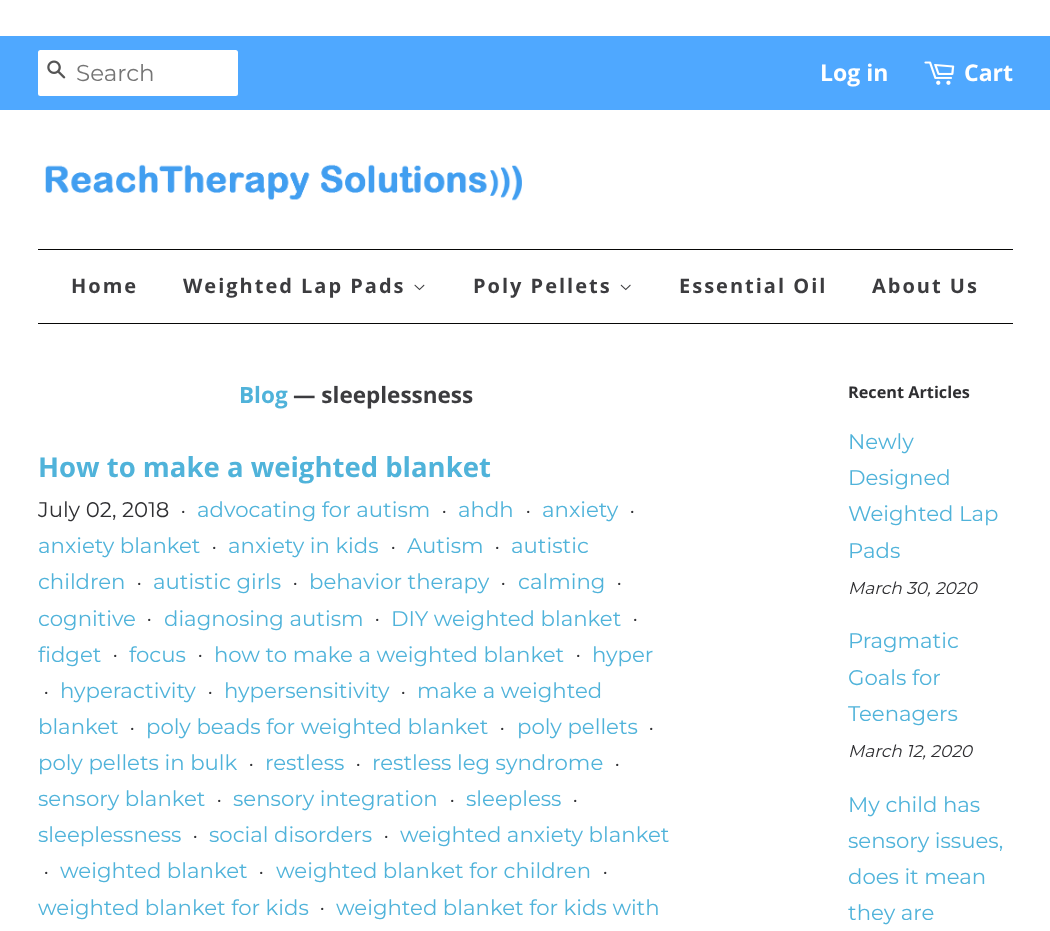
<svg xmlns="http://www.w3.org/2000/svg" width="1050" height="931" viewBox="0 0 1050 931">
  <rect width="100%" height="100%" fill="#ffffff"/>
  <rect x="0" y="36" width="1050" height="74" fill="#4fa8ff"/>
  <rect x="38" y="50" width="200" height="46" rx="2.5" fill="#ffffff"/>
  <image x="47" y="60" width="19" height="19" href="img1.png"/>
  <text x="76" y="81" font-family="Montserrat" font-size="23" fill="#757575">Search</text>
  <text x="820" y="81" font-family="Open Sans" font-size="23" font-weight="bold" fill="#ffffff">Log in</text>
  <image x="924" y="61" width="31" height="24" href="img2.png"/>
  <text x="964" y="81" font-family="Open Sans" font-size="23" font-weight="bold" fill="#ffffff">Cart</text>
  <image x="45" y="164" width="477" height="37" href="img3.png"/>
  <rect x="38" y="249" width="975" height="1" fill="#080807"/>
  <rect x="38" y="323" width="975" height="1" fill="#080807"/>
  <text x="71" y="293" font-family="Open Sans" font-size="20" font-weight="bold" letter-spacing="2" fill="#3c3c3f">Home</text>
  <text x="183" y="293" font-family="Open Sans" font-size="20" font-weight="bold" letter-spacing="2" fill="#3c3c3f">Weighted Lap Pads</text>
  <image x="414" y="284" width="11" height="7" href="img4.png"/>
  <text x="473" y="293" font-family="Open Sans" font-size="20" font-weight="bold" letter-spacing="2" fill="#3c3c3f">Poly Pellets</text>
  <image x="620" y="284" width="11" height="7" href="img5.png"/>
  <text x="679" y="293" font-family="Open Sans" font-size="20" font-weight="bold" letter-spacing="2" fill="#3c3c3f">Essential Oil</text>
  <text x="872" y="293" font-family="Open Sans" font-size="20" font-weight="bold" letter-spacing="2" fill="#3c3c3f">About Us</text>
  <text x="239" y="403" font-family="Open Sans" font-size="22.5" font-weight="bold" fill="#50b3da">Blog</text>
  <text x="293" y="403" font-family="Open Sans" font-size="22.5" font-weight="bold" fill="#3c3c3f">— sleeplessness</text>
  <text x="38" y="477" font-family="Open Sans" font-size="27.5" font-weight="bold" fill="#50b3da">How to make a weighted blanket</text>
  <text x="38" y="517" font-family="Montserrat" font-size="21.25" fill="#2f2f32">July 02, 2018</text>
  <text x="181" y="516" font-family="Montserrat" font-size="15" fill="#2f2f32">•</text>
  <text x="197" y="517" font-family="Montserrat" font-size="21.25" fill="#50b3da">advocating for autism</text>
  <text x="442" y="516" font-family="Montserrat" font-size="15" fill="#2f2f32">•</text>
  <text x="458" y="517" font-family="Montserrat" font-size="21.25" fill="#50b3da">ahdh</text>
  <text x="526" y="516" font-family="Montserrat" font-size="15" fill="#2f2f32">•</text>
  <text x="542" y="517" font-family="Montserrat" font-size="21.25" fill="#50b3da">anxiety</text>
  <text x="630" y="516" font-family="Montserrat" font-size="15" fill="#2f2f32">•</text>
  <text x="38" y="553" font-family="Montserrat" font-size="21.25" fill="#50b3da">anxiety blanket</text>
  <text x="212" y="552" font-family="Montserrat" font-size="15" fill="#2f2f32">•</text>
  <text x="228" y="553" font-family="Montserrat" font-size="21.25" fill="#50b3da">anxiety in kids</text>
  <text x="391" y="552" font-family="Montserrat" font-size="15" fill="#2f2f32">•</text>
  <text x="407" y="553" font-family="Montserrat" font-size="21.25" fill="#50b3da">Autism</text>
  <text x="495" y="552" font-family="Montserrat" font-size="15" fill="#2f2f32">•</text>
  <text x="511" y="553" font-family="Montserrat" font-size="21.25" fill="#50b3da">autistic</text>
  <text x="38" y="589" font-family="Montserrat" font-size="21.25" fill="#50b3da">children</text>
  <text x="137" y="588" font-family="Montserrat" font-size="15" fill="#2f2f32">•</text>
  <text x="153" y="589" font-family="Montserrat" font-size="21.25" fill="#50b3da">autistic girls</text>
  <text x="293" y="588" font-family="Montserrat" font-size="15" fill="#2f2f32">•</text>
  <text x="309" y="589" font-family="Montserrat" font-size="21.25" fill="#50b3da">behavior therapy</text>
  <text x="501" y="588" font-family="Montserrat" font-size="15" fill="#2f2f32">•</text>
  <text x="518" y="589" font-family="Montserrat" font-size="21.25" fill="#50b3da">calming</text>
  <text x="617" y="588" font-family="Montserrat" font-size="15" fill="#2f2f32">•</text>
  <text x="38" y="626" font-family="Montserrat" font-size="21.25" fill="#50b3da">cognitive</text>
  <text x="147" y="624" font-family="Montserrat" font-size="15" fill="#2f2f32">•</text>
  <text x="164" y="626" font-family="Montserrat" font-size="21.25" fill="#50b3da">diagnosing autism</text>
  <text x="375" y="624" font-family="Montserrat" font-size="15" fill="#2f2f32">•</text>
  <text x="391" y="626" font-family="Montserrat" font-size="21.25" fill="#50b3da">DIY weighted blanket</text>
  <text x="633" y="624" font-family="Montserrat" font-size="15" fill="#2f2f32">•</text>
  <text x="38" y="662" font-family="Montserrat" font-size="21.25" fill="#50b3da">fidget</text>
  <text x="113" y="660" font-family="Montserrat" font-size="15" fill="#2f2f32">•</text>
  <text x="129" y="662" font-family="Montserrat" font-size="21.25" fill="#50b3da">focus</text>
  <text x="198" y="660" font-family="Montserrat" font-size="15" fill="#2f2f32">•</text>
  <text x="214" y="662" font-family="Montserrat" font-size="21.25" fill="#50b3da">how to make a weighted blanket</text>
  <text x="576" y="660" font-family="Montserrat" font-size="15" fill="#2f2f32">•</text>
  <text x="592" y="662" font-family="Montserrat" font-size="21.25" fill="#50b3da">hyper</text>
  <text x="44" y="697" font-family="Montserrat" font-size="15" fill="#2f2f32">•</text>
  <text x="60" y="698" font-family="Montserrat" font-size="21.25" fill="#50b3da">hyperactivity</text>
  <text x="208" y="697" font-family="Montserrat" font-size="15" fill="#2f2f32">•</text>
  <text x="224" y="698" font-family="Montserrat" font-size="21.25" fill="#50b3da">hypersensitivity</text>
  <text x="401" y="697" font-family="Montserrat" font-size="15" fill="#2f2f32">•</text>
  <text x="417" y="698" font-family="Montserrat" font-size="21.25" fill="#50b3da">make a weighted</text>
  <text x="38" y="734" font-family="Montserrat" font-size="21.25" fill="#50b3da">blanket</text>
  <text x="130" y="733" font-family="Montserrat" font-size="15" fill="#2f2f32">•</text>
  <text x="146" y="734" font-family="Montserrat" font-size="21.25" fill="#50b3da">poly beads for weighted blanket</text>
  <text x="500" y="733" font-family="Montserrat" font-size="15" fill="#2f2f32">•</text>
  <text x="517" y="734" font-family="Montserrat" font-size="21.25" fill="#50b3da">poly pellets</text>
  <text x="649" y="733" font-family="Montserrat" font-size="15" fill="#2f2f32">•</text>
  <text x="38" y="770" font-family="Montserrat" font-size="21.25" fill="#50b3da">poly pellets in bulk</text>
  <text x="249" y="769" font-family="Montserrat" font-size="15" fill="#2f2f32">•</text>
  <text x="265" y="770" font-family="Montserrat" font-size="21.25" fill="#50b3da">restless</text>
  <text x="356" y="769" font-family="Montserrat" font-size="15" fill="#2f2f32">•</text>
  <text x="372" y="770" font-family="Montserrat" font-size="21.25" fill="#50b3da">restless leg syndrome</text>
  <text x="615" y="769" font-family="Montserrat" font-size="15" fill="#2f2f32">•</text>
  <text x="38" y="806" font-family="Montserrat" font-size="21.25" fill="#50b3da">sensory blanket</text>
  <text x="217" y="805" font-family="Montserrat" font-size="15" fill="#2f2f32">•</text>
  <text x="233" y="806" font-family="Montserrat" font-size="21.25" fill="#50b3da">sensory integration</text>
  <text x="450" y="805" font-family="Montserrat" font-size="15" fill="#2f2f32">•</text>
  <text x="466" y="806" font-family="Montserrat" font-size="21.25" fill="#50b3da">sleepless</text>
  <text x="573" y="805" font-family="Montserrat" font-size="15" fill="#2f2f32">•</text>
  <text x="38" y="842" font-family="Montserrat" font-size="21.25" fill="#50b3da">sleeplessness</text>
  <text x="193" y="841" font-family="Montserrat" font-size="15" fill="#2f2f32">•</text>
  <text x="209" y="842" font-family="Montserrat" font-size="21.25" fill="#50b3da">social disorders</text>
  <text x="384" y="841" font-family="Montserrat" font-size="15" fill="#2f2f32">•</text>
  <text x="400" y="842" font-family="Montserrat" font-size="21.25" fill="#50b3da">weighted anxiety blanket</text>
  <text x="44" y="877" font-family="Montserrat" font-size="15" fill="#2f2f32">•</text>
  <text x="60" y="878" font-family="Montserrat" font-size="21.25" fill="#50b3da">weighted blanket</text>
  <text x="259" y="877" font-family="Montserrat" font-size="15" fill="#2f2f32">•</text>
  <text x="276" y="878" font-family="Montserrat" font-size="21.25" fill="#50b3da">weighted blanket for children</text>
  <text x="603" y="877" font-family="Montserrat" font-size="15" fill="#2f2f32">•</text>
  <text x="38" y="915" font-family="Montserrat" font-size="21.25" fill="#50b3da">weighted blanket for kids</text>
  <text x="320" y="913" font-family="Montserrat" font-size="15" fill="#2f2f32">•</text>
  <text x="336" y="915" font-family="Montserrat" font-size="21.25" fill="#50b3da">weighted blanket for kids with</text>
  <text x="848" y="398" font-family="Open Sans" font-size="16.25" font-weight="bold" fill="#2f2f32">Recent Articles</text>
  <text x="848" y="449" font-family="Montserrat" font-size="21.25" fill="#50b3da">Newly</text>
  <text x="848" y="485" font-family="Montserrat" font-size="21.25" fill="#50b3da">Designed</text>
  <text x="848" y="521" font-family="Montserrat" font-size="21.25" fill="#50b3da">Weighted Lap</text>
  <text x="848" y="558" font-family="Montserrat" font-size="21.25" fill="#50b3da">Pads</text>
  <text x="848" y="594" font-family="Montserrat" font-size="17" font-style="italic" fill="#2f2f32">March 30, 2020</text>
  <text x="848" y="648" font-family="Montserrat" font-size="21.25" fill="#50b3da">Pragmatic</text>
  <text x="848" y="685" font-family="Montserrat" font-size="21.25" fill="#50b3da">Goals for</text>
  <text x="848" y="721" font-family="Montserrat" font-size="21.25" fill="#50b3da">Teenagers</text>
  <text x="848" y="757" font-family="Montserrat" font-size="17" font-style="italic" fill="#2f2f32">March 12, 2020</text>
  <text x="848" y="812" font-family="Montserrat" font-size="21.25" fill="#50b3da">My child has</text>
  <text x="848" y="848" font-family="Montserrat" font-size="21.25" fill="#50b3da">sensory issues,</text>
  <text x="848" y="884" font-family="Montserrat" font-size="21.25" fill="#50b3da">does it mean</text>
  <text x="848" y="920" font-family="Montserrat" font-size="21.25" fill="#50b3da">they are</text>
</svg>
